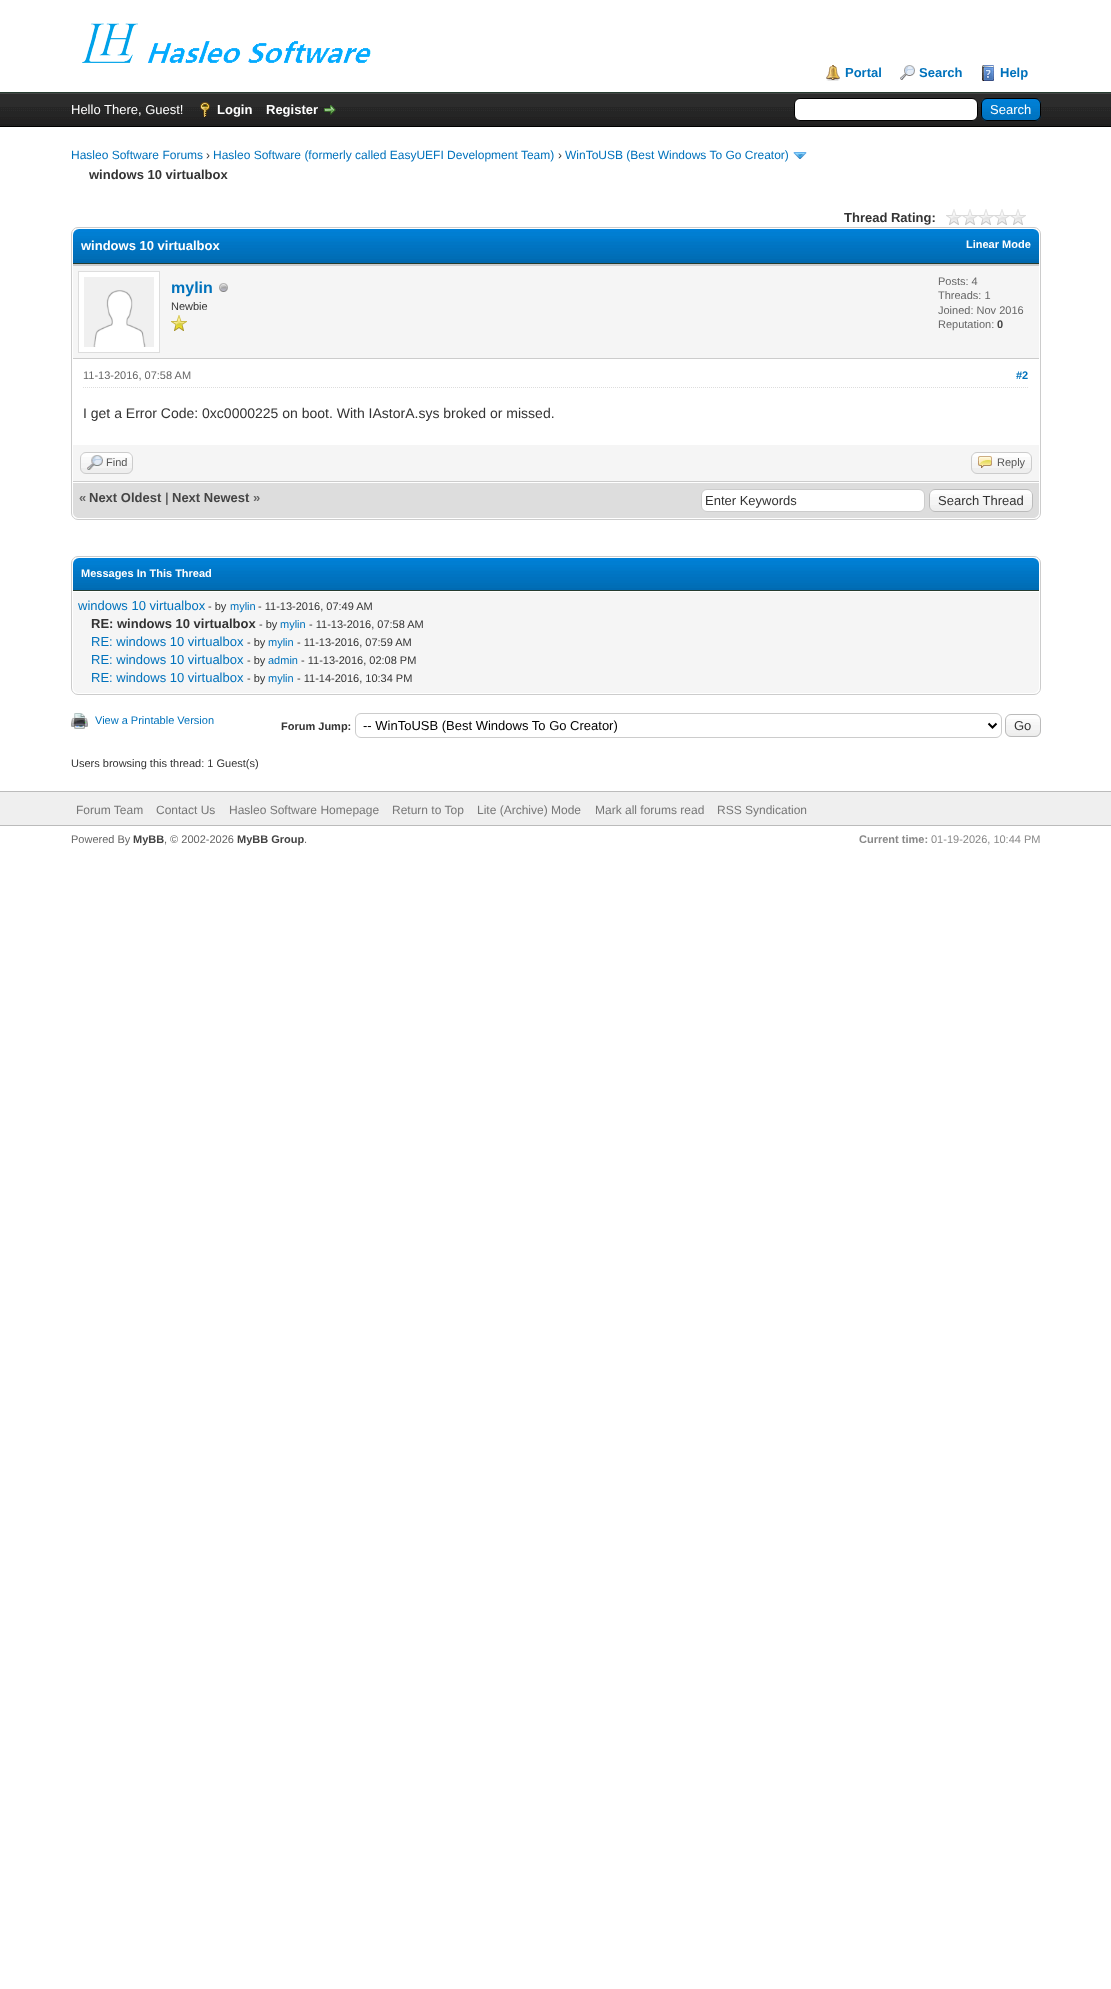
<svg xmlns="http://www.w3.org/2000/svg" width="1111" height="1989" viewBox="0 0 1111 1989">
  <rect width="100%" height="100%" fill="#ffffff"/>
  <rect x="0" y="92" width="1111" height="1" fill="#263c30"/>
  <image x="82" y="23" width="289" height="40" href="img1.png"/>
  <image x="826" y="65" width="14" height="16" href="img2.png"/>
  <text x="845" y="77" font-family="Liberation Sans" font-size="13" font-weight="bold" fill="#0072bc">Portal</text>
  <image x="900" y="65" width="15" height="15" href="img3.png"/>
  <text x="919" y="77" font-family="Liberation Sans" font-size="13" font-weight="bold" fill="#0072bc">Search</text>
  <image x="982" y="65" width="12" height="16" href="img4.png"/>
  <text x="1000" y="77" font-family="Liberation Sans" font-size="13" font-weight="bold" fill="#0072bc">Help</text>
  <image x="0" y="94" width="1111" height="32" href="img5.png"/>
  <rect x="0" y="93" width="1111" height="1" fill="#444444"/>
  <rect x="0" y="126" width="1111" height="1" fill="#000000"/>
  <text x="71" y="114" font-family="Liberation Sans" font-size="13" fill="#ffffff">Hello There, Guest!</text>
  <image x="200" y="102" width="10" height="15" href="img6.png"/>
  <text x="217" y="114" font-family="Liberation Sans" font-size="13" font-weight="bold" fill="#ffffff">Login</text>
  <text x="266" y="114" font-family="Liberation Sans" font-size="13" font-weight="bold" fill="#ffffff">Register</text>
  <image x="324" y="105" width="12" height="10" href="img7.png"/>
  <rect x="794.5" y="98.5" width="183" height="22" rx="5.5" fill="#ffffff" stroke="#000000"/>
  <image x="981" y="99" width="60" height="22" href="img8.png"/>
  <rect x="981.5" y="98.5" width="59" height="22" rx="5.5" fill="none" stroke="#000000"/>
  <text x="990" y="114" font-family="Liberation Sans" font-size="13" fill="#ffffff">Search</text>
  <text x="71" y="159" font-family="Liberation Sans" font-size="12" fill="#0072bc">Hasleo Software Forums</text>
  <text x="206" y="159" font-family="Liberation Sans" font-size="12" fill="#333333">›</text>
  <text x="213" y="159" font-family="Liberation Sans" font-size="12" fill="#0072bc">Hasleo Software (formerly called EasyUEFI Development Team)</text>
  <text x="558" y="159" font-family="Liberation Sans" font-size="12" fill="#333333">›</text>
  <text x="565" y="159" font-family="Liberation Sans" font-size="12" fill="#0072bc">WinToUSB (Best Windows To Go Creator)</text>
  <image x="793" y="152" width="14" height="7" href="img9.png"/>
  <text x="89" y="179" font-family="Liberation Sans" font-size="13" font-weight="bold" fill="#333333">windows 10 virtualbox</text>
  <text x="844" y="222" font-family="Liberation Sans" font-size="13" font-weight="bold" fill="#333333">Thread Rating:</text>
  <image x="946" y="209" width="80" height="16" href="img10.png"/>
  <rect x="71.5" y="227.5" width="969" height="292" rx="6.5" fill="none" stroke="#cccccc"/>
  <image x="73" y="229" width="966" height="34" href="img11.png"/>
  <rect x="73" y="263" width="966" height="1" fill="#263c30"/>
  <text x="81" y="250" font-family="Liberation Sans" font-size="13" font-weight="bold" fill="#ffffff">windows 10 virtualbox</text>
  <text x="966" y="248" font-family="Liberation Sans" font-size="11" font-weight="bold" fill="#ffffff">Linear Mode</text>
  <rect x="73" y="266" width="966" height="92" fill="#f5f5f5"/>
  <rect x="73" y="264" width="966" height="2" fill="#cccccc"/>
  <rect x="73" y="358" width="966" height="1" fill="#cccccc"/>
  <rect x="78.5" y="271.5" width="81" height="81" fill="#ffffff" stroke="#dddddd"/>
  <image x="84" y="277" width="70" height="70" href="img12.png"/>
  <text x="171" y="293" font-family="Liberation Sans" font-size="16" font-weight="bold" fill="#0072bc">mylin</text>
  <image x="219" y="283" width="9" height="9" href="img13.png"/>
  <text x="171" y="310" font-family="Liberation Sans" font-size="11" fill="#333333">Newbie</text>
  <image x="171" y="315" width="16" height="16" href="img14.png"/>
  <text x="938" y="285" font-family="Liberation Sans" font-size="11" fill="#666666">Posts: 4</text>
  <text x="938" y="299" font-family="Liberation Sans" font-size="11" fill="#666666">Threads: 1</text>
  <text x="938" y="314" font-family="Liberation Sans" font-size="11" fill="#666666">Joined: Nov 2016</text>
  <text x="938" y="328" font-family="Liberation Sans" font-size="11" fill="#666666">Reputation:</text>
  <text x="997" y="328" font-family="Liberation Sans" font-size="11" font-weight="bold" fill="#444444">0</text>
  <path d="M83 387.5H1029" fill="none" stroke="#dddddd" stroke-dasharray="1 1"/>
  <text x="83" y="379" font-family="Liberation Sans" font-size="11" fill="#666666">11-13-2016, 07:58 AM</text>
  <text x="1016" y="379" font-family="Liberation Sans" font-size="11" font-weight="bold" fill="#0072bc">#2</text>
  <text x="83" y="418" font-family="Liberation Sans" font-size="14" fill="#333333">I get a Error Code: 0xc0000225 on boot. With IAstorA.sys broked or missed.</text>
  <rect x="73" y="445" width="966" height="36" fill="#f5f5f5"/>
  <rect x="73" y="481" width="966" height="1" fill="#cccccc"/>
  <rect x="80" y="452" width="53" height="22" rx="6" fill="#eeeeee"/>
  <image x="80" y="453" width="53" height="15" href="img15.png"/>
  <rect x="80.5" y="452.5" width="52" height="21" rx="5.5" fill="none" stroke="#cccccc"/>
  <image x="87" y="455" width="16" height="15" href="img16.png"/>
  <text x="106" y="466" font-family="Liberation Sans" font-size="11" fill="#555555">Find</text>
  <rect x="971" y="452" width="61" height="22" rx="6" fill="#eeeeee"/>
  <image x="971" y="453" width="61" height="15" href="img17.png"/>
  <rect x="971.5" y="452.5" width="60" height="21" rx="5.5" fill="none" stroke="#cccccc"/>
  <image x="978" y="456" width="14" height="12" href="img18.png"/>
  <text x="997" y="466" font-family="Liberation Sans" font-size="11" fill="#555555">Reply</text>
  <path d="M73 482H1039V512C1039 515.5 1036.5 518 1033 518H79C75.5 518 73 515.5 73 512Z" fill="#dddddd"/>
  <rect x="73" y="482" width="966" height="1" fill="#ffffff"/>
  <text x="79" y="502" font-family="Liberation Sans" font-size="13" font-weight="bold" fill="#666666">«</text>
  <text x="89" y="502" font-family="Liberation Sans" font-size="13" font-weight="bold" fill="#444444">Next Oldest</text>
  <text x="165" y="502" font-family="Liberation Sans" font-size="13" font-weight="bold" fill="#666666">|</text>
  <text x="172" y="502" font-family="Liberation Sans" font-size="13" font-weight="bold" fill="#444444">Next Newest</text>
  <text x="253" y="502" font-family="Liberation Sans" font-size="13" font-weight="bold" fill="#666666">»</text>
  <rect x="701.5" y="489.5" width="223" height="22" rx="5.5" fill="#ffffff" stroke="#cccccc"/>
  <text x="705" y="505" font-family="Liberation Sans" font-size="13" fill="#333333">Enter Keywords</text>
  <rect x="929" y="489" width="104" height="23" rx="6" fill="#eeeeee"/>
  <image x="929" y="490" width="104" height="18" href="img19.png"/>
  <rect x="929.5" y="489.5" width="103" height="22" rx="5.5" fill="none" stroke="#bbbbbb"/>
  <text x="938" y="505" font-family="Liberation Sans" font-size="13" fill="#333333">Search Thread</text>
  <rect x="71.5" y="556.5" width="969" height="138" rx="6.5" fill="none" stroke="#cccccc"/>
  <image x="73" y="558" width="966" height="32" href="img20.png"/>
  <rect x="73" y="590" width="966" height="1" fill="#263c30"/>
  <text x="81" y="577" font-family="Liberation Sans" font-size="11" font-weight="bold" fill="#ffffff">Messages In This Thread</text>
  <path d="M73 591H1039V687C1039 690.5 1036.5 693 1033 693H79C75.5 693 73 690.5 73 687Z" fill="#f5f5f5"/>
  <rect x="73" y="591" width="966" height="1" fill="#ffffff"/>
  <text x="78" y="610" font-family="Liberation Sans" font-size="13" fill="#0072bc">windows 10 virtualbox</text>
  <text x="208" y="610" font-family="Liberation Sans" font-size="11" fill="#333333">- by</text>
  <text x="230" y="610" font-family="Liberation Sans" font-size="11" fill="#0072bc">mylin</text>
  <text x="258" y="610" font-family="Liberation Sans" font-size="11" fill="#333333">- 11-13-2016, 07:49 AM</text>
  <text x="91" y="628" font-family="Liberation Sans" font-size="13" font-weight="bold" fill="#333333">RE: windows 10 virtualbox</text>
  <text x="259" y="628" font-family="Liberation Sans" font-size="11" fill="#333333">- by</text>
  <text x="280" y="628" font-family="Liberation Sans" font-size="11" fill="#0072bc">mylin</text>
  <text x="309" y="628" font-family="Liberation Sans" font-size="11" fill="#333333">- 11-13-2016, 07:58 AM</text>
  <text x="91" y="646" font-family="Liberation Sans" font-size="13" fill="#0072bc">RE: windows 10 virtualbox</text>
  <text x="247" y="646" font-family="Liberation Sans" font-size="11" fill="#333333">- by</text>
  <text x="268" y="646" font-family="Liberation Sans" font-size="11" fill="#0072bc">mylin</text>
  <text x="297" y="646" font-family="Liberation Sans" font-size="11" fill="#333333">- 11-13-2016, 07:59 AM</text>
  <text x="91" y="664" font-family="Liberation Sans" font-size="13" fill="#0072bc">RE: windows 10 virtualbox</text>
  <text x="247" y="664" font-family="Liberation Sans" font-size="11" fill="#333333">- by</text>
  <text x="268" y="664" font-family="Liberation Sans" font-size="11" fill="#0072bc">admin</text>
  <text x="301" y="664" font-family="Liberation Sans" font-size="11" fill="#333333">- 11-13-2016, 02:08 PM</text>
  <text x="91" y="682" font-family="Liberation Sans" font-size="13" fill="#0072bc">RE: windows 10 virtualbox</text>
  <text x="247" y="682" font-family="Liberation Sans" font-size="11" fill="#333333">- by</text>
  <text x="268" y="682" font-family="Liberation Sans" font-size="11" fill="#0072bc">mylin</text>
  <text x="297" y="682" font-family="Liberation Sans" font-size="11" fill="#333333">- 11-14-2016, 10:34 PM</text>
  <image x="71" y="713" width="17" height="16" href="img21.png"/>
  <text x="95" y="724" font-family="Liberation Sans" font-size="11" fill="#0072bc">View a Printable Version</text>
  <text x="281" y="730" font-family="Liberation Sans" font-size="11" font-weight="bold" fill="#333333">Forum Jump:</text>
  <rect x="355.5" y="713.5" width="646" height="24" rx="5.5" fill="none" stroke="#cccccc"/>
  <path d="M988.5 723.5L992.5 727.5L996.5 723.5" fill="none" stroke="#000000" stroke-width="2"/>
  <text x="363" y="730" font-family="Liberation Sans" font-size="13" fill="#000000">-- WinToUSB (Best Windows To Go Creator)</text>
  <image x="1005" y="715" width="36" height="22" href="img22.png"/>
  <rect x="1005.5" y="714.5" width="35" height="22" rx="5.5" fill="none" stroke="#bbbbbb"/>
  <text x="1014" y="730" font-family="Liberation Sans" font-size="13" fill="#333333">Go</text>
  <text x="71" y="767" font-family="Liberation Sans" font-size="11" fill="#333333">Users browsing this thread: 1 Guest(s)</text>
  <rect x="0" y="792" width="1111" height="33" fill="#efefef"/>
  <rect x="0" y="791" width="1111" height="1" fill="#bbbbbb"/>
  <rect x="0" y="825" width="1111" height="1" fill="#bbbbbb"/>
  <text x="76" y="814" font-family="Liberation Sans" font-size="12" fill="#777777">Forum Team</text>
  <text x="156" y="814" font-family="Liberation Sans" font-size="12" fill="#777777">Contact Us</text>
  <text x="229" y="814" font-family="Liberation Sans" font-size="12" fill="#777777">Hasleo Software Homepage</text>
  <text x="392" y="814" font-family="Liberation Sans" font-size="12" fill="#777777">Return to Top</text>
  <text x="477" y="814" font-family="Liberation Sans" font-size="12" fill="#777777">Lite (Archive) Mode</text>
  <text x="595" y="814" font-family="Liberation Sans" font-size="12" fill="#777777">Mark all forums read</text>
  <text x="717" y="814" font-family="Liberation Sans" font-size="12" fill="#777777">RSS Syndication</text>
  <text x="71" y="843" font-family="Liberation Sans" font-size="11" fill="#666666">Powered By</text>
  <text x="133" y="843" font-family="Liberation Sans" font-size="11" font-weight="bold" fill="#444444">MyBB</text>
  <text x="164" y="843" font-family="Liberation Sans" font-size="11" fill="#666666">, © 2002-2026</text>
  <text x="237" y="843" font-family="Liberation Sans" font-size="11" font-weight="bold" fill="#444444">MyBB Group</text>
  <text x="304" y="843" font-family="Liberation Sans" font-size="11" fill="#666666">.</text>
  <text x="859" y="843" font-family="Liberation Sans" font-size="11" font-weight="bold" fill="#888888">Current time:</text>
  <text x="931" y="843" font-family="Liberation Sans" font-size="11" fill="#888888">01-19-2026, 10:44 PM</text>
</svg>
